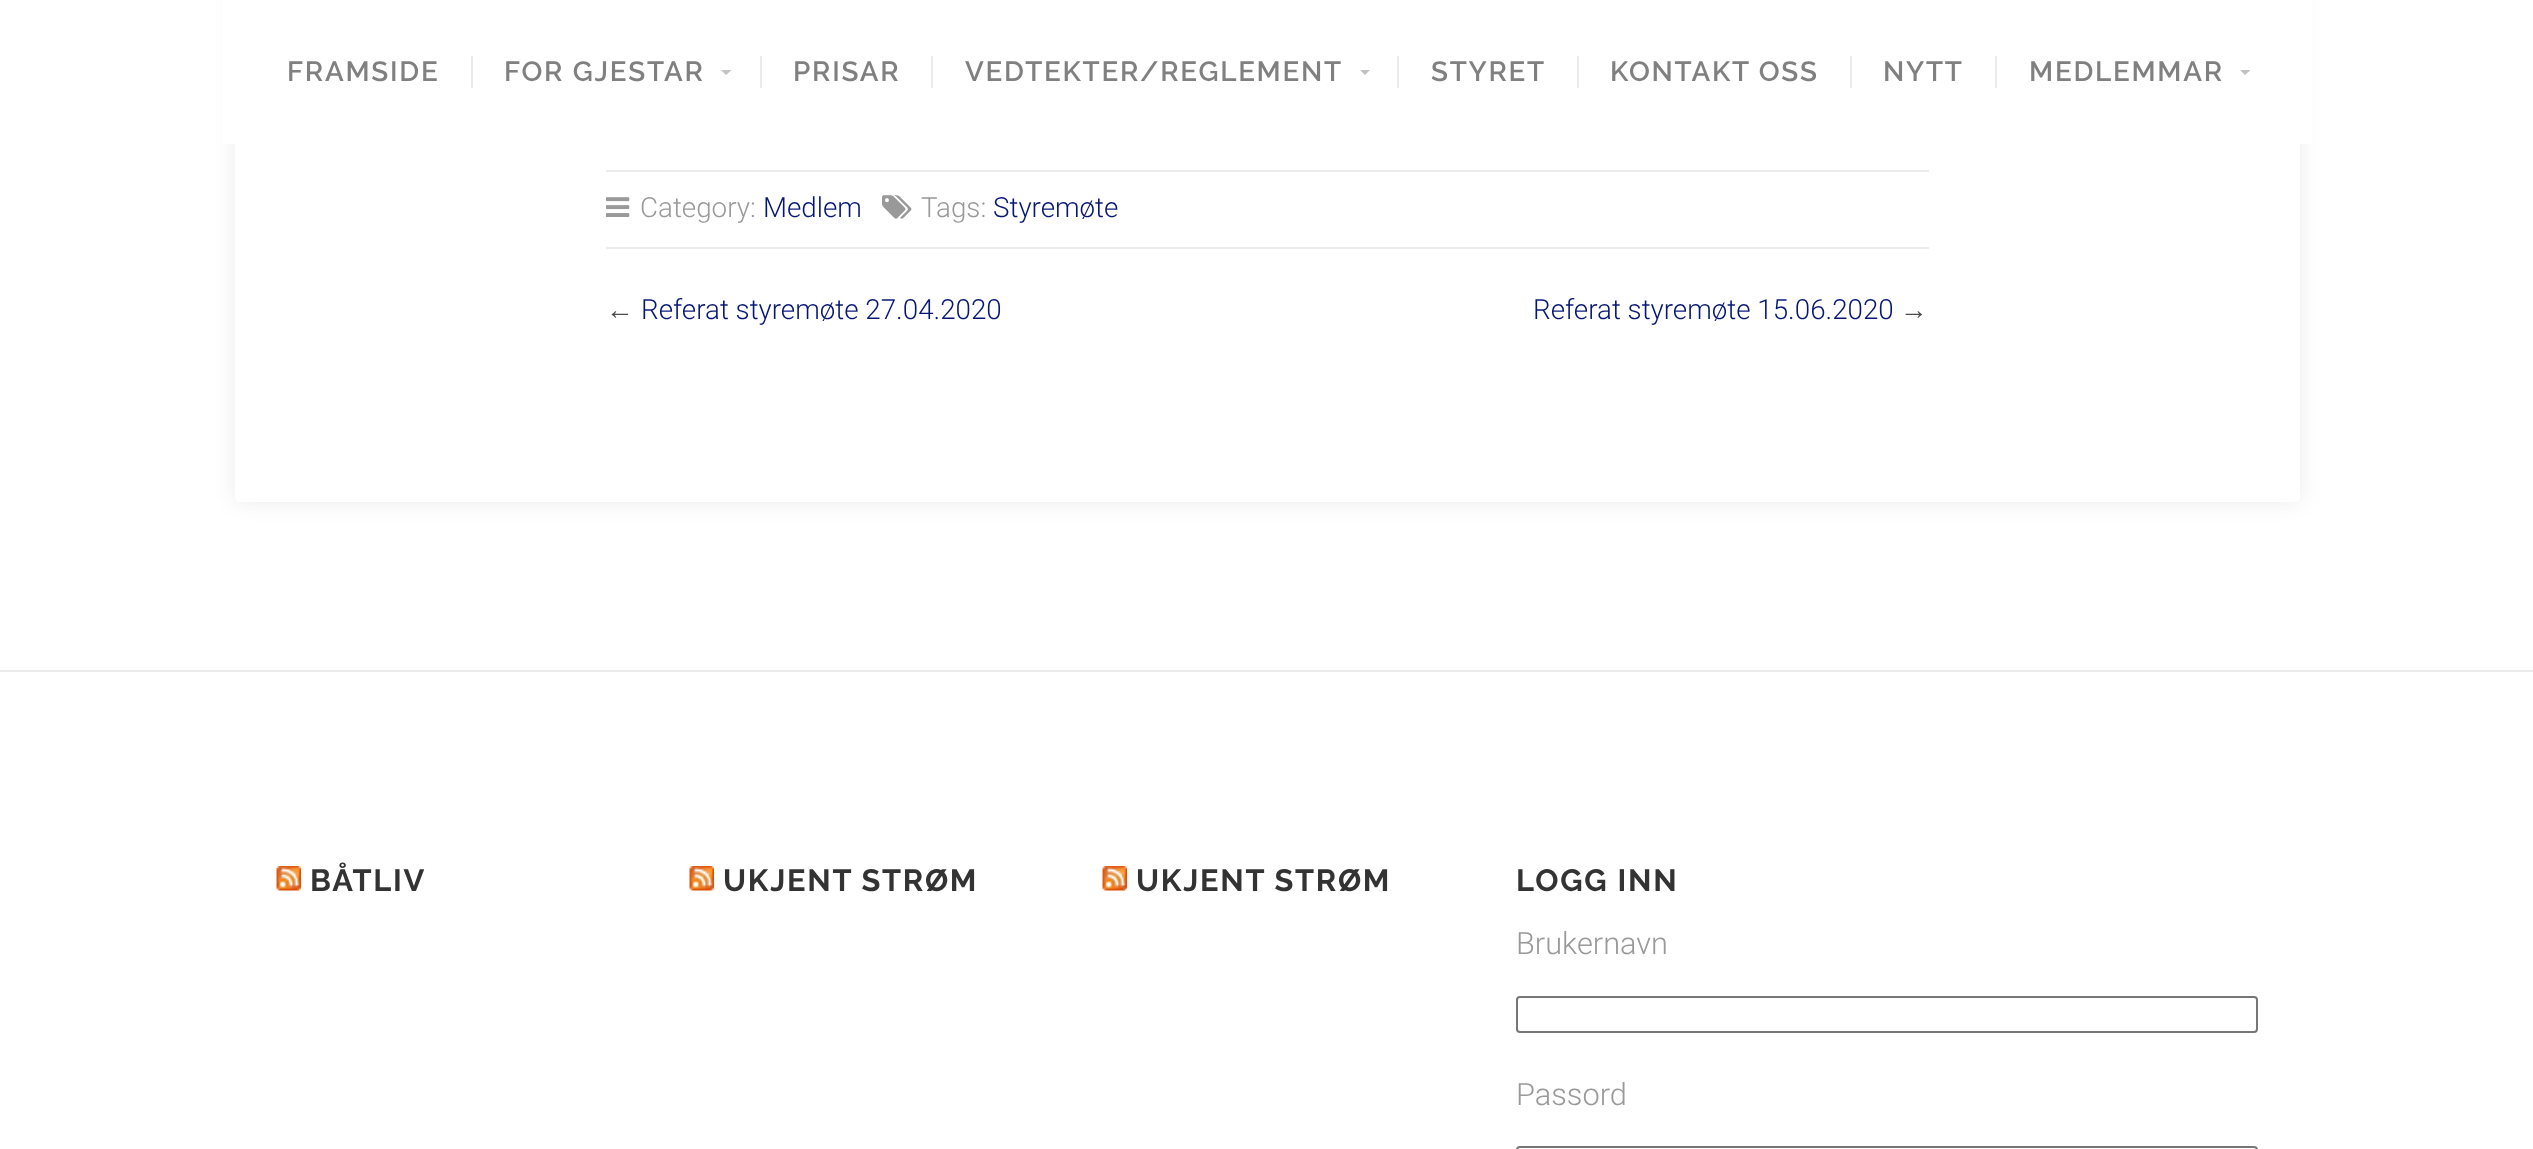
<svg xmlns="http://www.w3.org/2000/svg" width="2533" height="1149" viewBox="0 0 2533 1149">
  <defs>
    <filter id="blur1" x="-50%" y="-200%" width="200%" height="500%"><feGaussianBlur stdDeviation="10.5"/></filter>
  </defs>
  <rect width="100%" height="100%" fill="#ffffff"/>
  <rect x="235" y="-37" width="2065" height="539" rx="5" fill="#000000" fill-opacity="0.08" filter="url(#blur1)"/>
  <rect x="235" y="-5" width="2065" height="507" rx="5" fill="#ffffff"/>
  <rect x="223" y="0" width="2089" height="144" fill="#ffffff"/>
  <text x="287" y="81" font-family="Raleway" font-size="27.75" font-weight="600" letter-spacing="1.75" fill="#808080">FRAMSIDE</text>
  <rect x="471" y="56" width="2" height="32" fill="#ebebeb"/>
  <text x="504" y="81" font-family="Raleway" font-size="27.75" font-weight="600" letter-spacing="1.75" fill="#808080">FOR GJESTAR</text>
  <path d="M721 70H731.5L726 75Z" fill="#c2c2c2"/>
  <rect x="760" y="56" width="2" height="32" fill="#ebebeb"/>
  <text x="793" y="81" font-family="Raleway" font-size="27.75" font-weight="600" letter-spacing="1.75" fill="#808080">PRISAR</text>
  <rect x="931" y="56" width="2" height="32" fill="#ebebeb"/>
  <text x="965" y="81" font-family="Raleway" font-size="27.75" font-weight="600" letter-spacing="1.75" fill="#808080">VEDTEKTER/REGLEMENT</text>
  <path d="M1360 70H1370L1365 75Z" fill="#c2c2c2"/>
  <rect x="1397" y="56" width="2" height="32" fill="#ebebeb"/>
  <text x="1431" y="81" font-family="Raleway" font-size="27.75" font-weight="600" letter-spacing="1.75" fill="#808080">STYRET</text>
  <rect x="1577" y="56" width="2" height="32" fill="#ebebeb"/>
  <text x="1610" y="81" font-family="Raleway" font-size="27.75" font-weight="600" letter-spacing="1.75" fill="#808080">KONTAKT OSS</text>
  <rect x="1850" y="56" width="2" height="32" fill="#ebebeb"/>
  <text x="1883" y="81" font-family="Raleway" font-size="27.75" font-weight="600" letter-spacing="1.75" fill="#808080">NYTT</text>
  <rect x="1995" y="56" width="2" height="32" fill="#ebebeb"/>
  <text x="2029" y="81" font-family="Raleway" font-size="27.75" font-weight="600" letter-spacing="1.75" fill="#808080">MEDLEMMAR</text>
  <path d="M2240 70H2250.5L2245 75Z" fill="#c2c2c2"/>
  <rect x="606" y="170" width="1323" height="2" fill="#ebebeb"/>
  <rect x="606" y="247" width="1323" height="2" fill="#ebebeb"/>
  <image x="606" y="197" width="24" height="20" href="img1.png"/>
  <text x="640" y="217" font-family="Roboto" font-size="27.75" font-weight="300" fill="#999999">Category:</text>
  <text x="763" y="217" font-family="Roboto" font-size="27.75" font-weight="300" fill="#051675">Medlem</text>
  <image x="882" y="195" width="30" height="24" href="img2.png"/>
  <text x="921" y="217" font-family="Roboto" font-size="27.75" font-weight="300" fill="#999999">Tags:</text>
  <text x="993" y="217" font-family="Roboto" font-size="27.75" font-weight="300" fill="#051675">Styremøte</text>
  <text x="606" y="319" font-family="Liberation Sans" font-size="27.75" fill="#4d4d4d">←</text>
  <text x="641" y="319" font-family="Roboto" font-size="27.75" font-weight="300" fill="#051675">Referat styremøte 27.04.2020</text>
  <text x="1533" y="319" font-family="Roboto" font-size="27.75" font-weight="300" fill="#051675">Referat styremøte 15.06.2020</text>
  <text x="1900" y="319" font-family="Liberation Sans" font-size="27.75" fill="#4d4d4d">→</text>
  <rect x="0" y="670" width="2533" height="2" fill="#ebebeb"/>
  <image x="276" y="866" width="25" height="25" href="img3.png"/>
  <text x="310" y="891" font-family="Raleway" font-size="30.75" font-weight="bold" letter-spacing="1.75" fill="#333333">BÅTLIV</text>
  <image x="689" y="866" width="25" height="25" href="img4.png"/>
  <text x="723" y="891" font-family="Raleway" font-size="30.75" font-weight="bold" letter-spacing="1.75" fill="#333333">UKJENT STRØM</text>
  <image x="1102" y="866" width="25" height="25" href="img4.png"/>
  <text x="1136" y="891" font-family="Raleway" font-size="30.75" font-weight="bold" letter-spacing="1.75" fill="#333333">UKJENT STRØM</text>
  <text x="1516" y="891" font-family="Raleway" font-size="30.75" font-weight="bold" letter-spacing="1.75" fill="#333333">LOGG INN</text>
  <text x="1516" y="954" font-family="Roboto" font-size="30.75" font-weight="300" fill="#999999">Brukernavn</text>
  <rect x="1517" y="997" width="740" height="35" rx="3" fill="none" stroke="#767676" stroke-width="2"/>
  <text x="1516" y="1105" font-family="Roboto" font-size="30.75" font-weight="300" fill="#999999">Passord</text>
  <rect x="1517" y="1147" width="740" height="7" rx="3" fill="none" stroke="#767676" stroke-width="2"/>
</svg>
